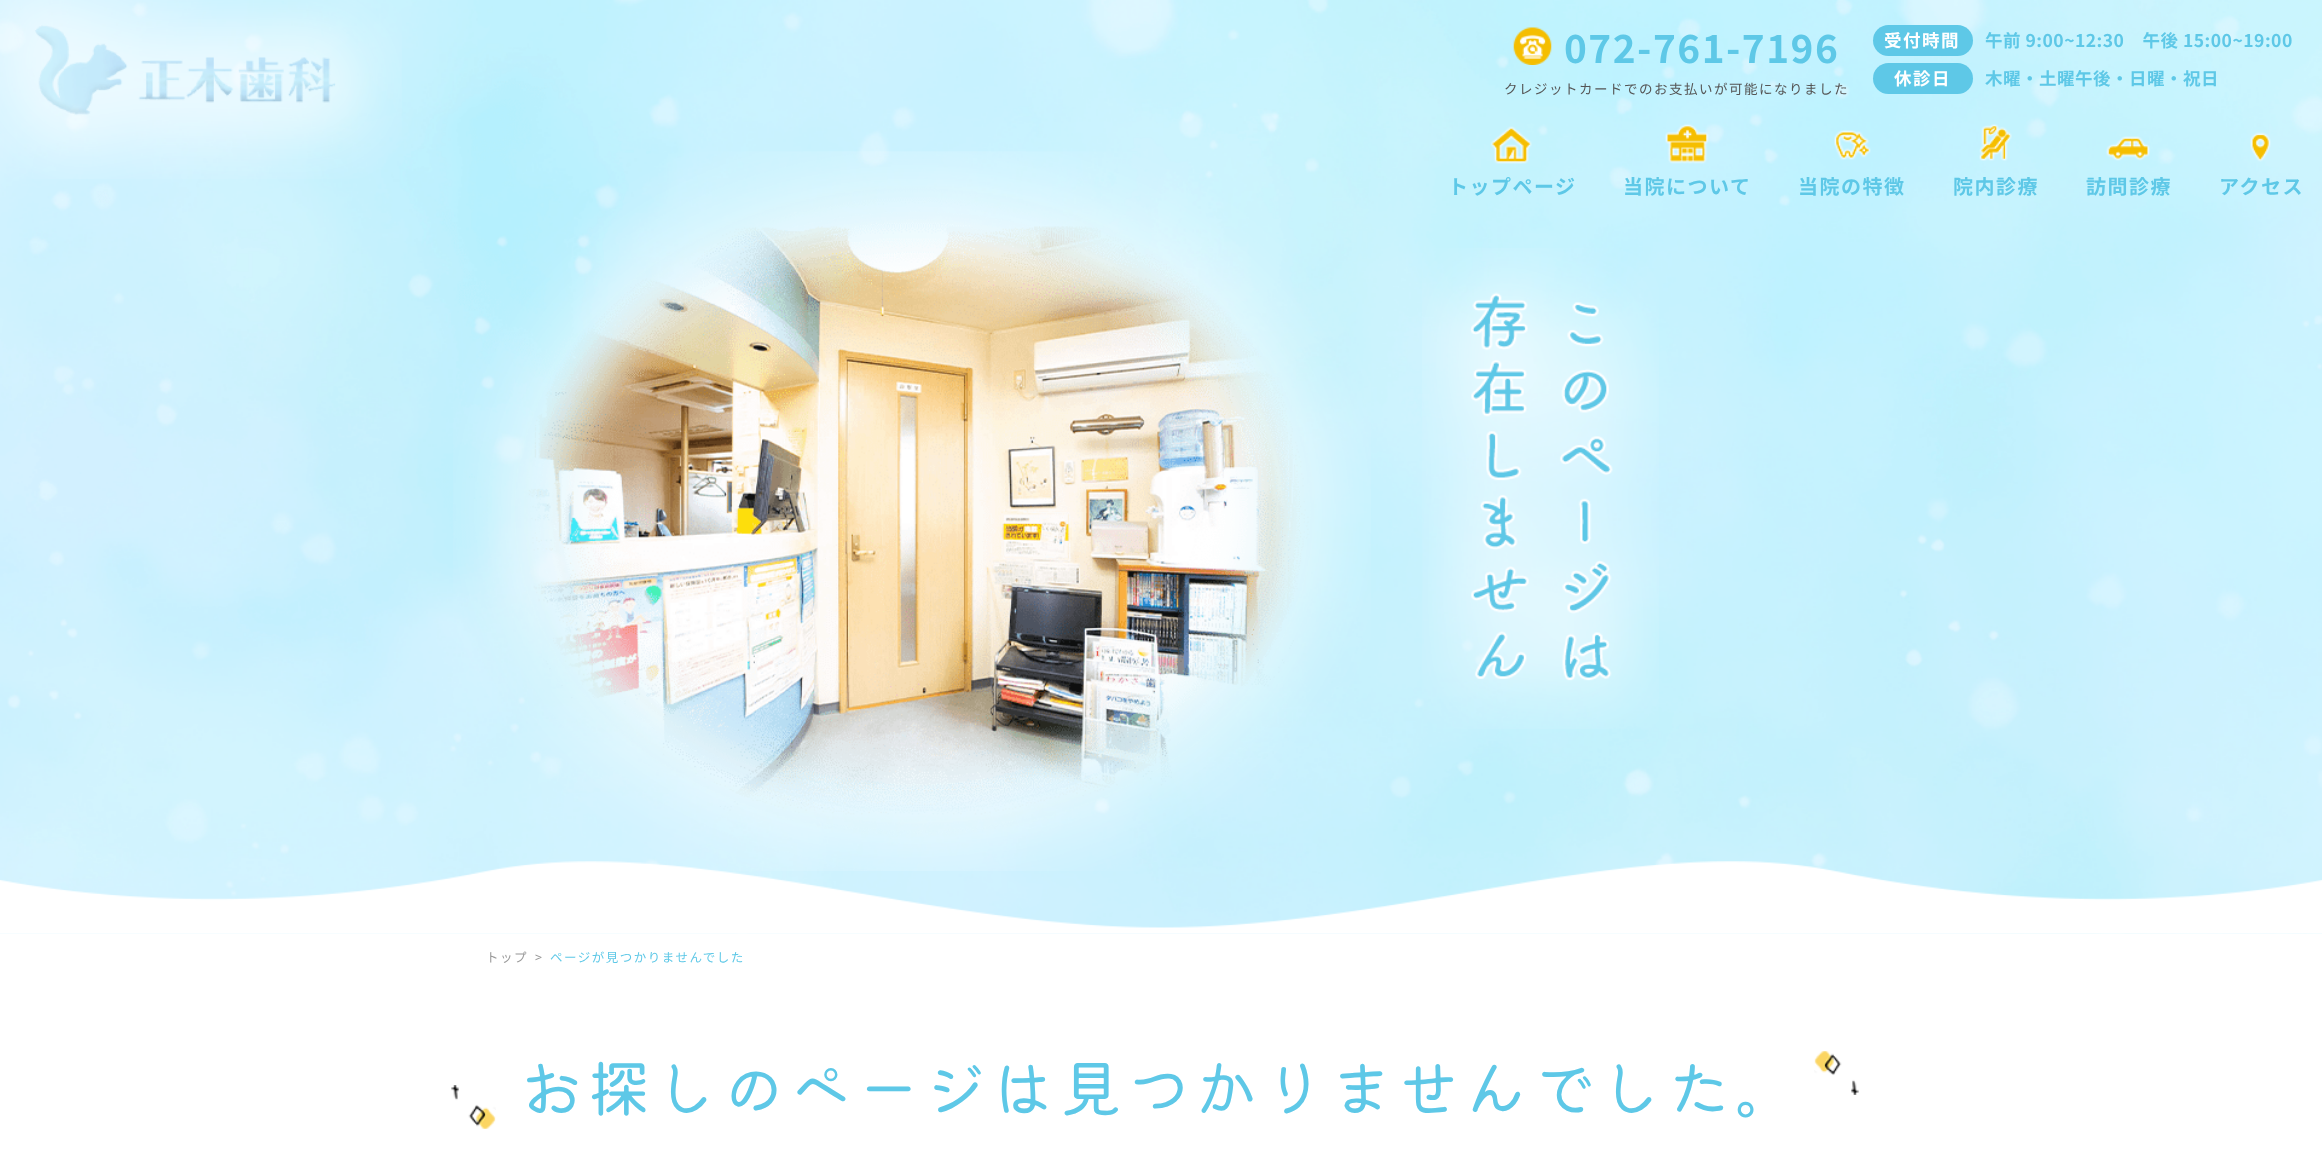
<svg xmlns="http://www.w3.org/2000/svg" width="2322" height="1161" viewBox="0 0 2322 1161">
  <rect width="100%" height="100%" fill="#ffffff"/>
  <image x="0" y="0" width="2322" height="934" href="img1.png"/>
  <image x="0" y="0" width="402" height="179" href="img2.png"/>
  <image x="1513" y="27" width="39" height="38" href="img3.png"/>
  <text x="1564" y="63" font-family="Noto Sans JP" font-size="38.75" font-weight="bold" letter-spacing="1.5" fill="#5ec8e7">072-761-7196</text>
  <text x="1504" y="94" font-family="Noto Sans JP" font-size="13.5" letter-spacing="1.5" fill="#555555">クレジットカードでのお支払いが可能になりました</text>
  <rect x="1873" y="25" width="100" height="31" rx="15.5" fill="#5ec8e7"/>
  <text x="1884" y="47" font-family="Noto Sans JP" font-size="17.5" font-weight="bold" letter-spacing="1.5" fill="#ffffff">受付時間</text>
  <text x="1985" y="47" font-family="Noto Sans JP" font-size="17.5" font-weight="bold" letter-spacing="0.5" fill="#5ec8e7">午前 9:00~12:30　午後 15:00~19:00</text>
  <rect x="1873" y="63" width="100" height="31" rx="15.5" fill="#5ec8e7"/>
  <text x="1894" y="85" font-family="Noto Sans JP" font-size="17.5" font-weight="bold" letter-spacing="1.5" fill="#ffffff">休診日</text>
  <text x="1985" y="85" font-family="Noto Sans JP" font-size="17.5" font-weight="bold" letter-spacing="0.5" fill="#5ec8e7">木曜・土曜午後・日曜・祝日</text>
  <image x="1490" y="126" width="42" height="38" href="img4.png"/>
  <text x="1448" y="194" font-family="Noto Sans JP" font-size="20" font-weight="bold" letter-spacing="1.5" fill="#5ec8e7">トップページ</text>
  <image x="1665" y="124" width="44" height="40" href="img5.png"/>
  <text x="1623" y="194" font-family="Noto Sans JP" font-size="20" font-weight="bold" letter-spacing="1.5" fill="#5ec8e7">当院について</text>
  <image x="1834" y="130" width="37" height="30" href="img6.png"/>
  <text x="1798" y="194" font-family="Noto Sans JP" font-size="20" font-weight="bold" letter-spacing="1.5" fill="#5ec8e7">当院の特徴</text>
  <image x="1979" y="124" width="33" height="37" href="img7.png"/>
  <text x="1953" y="194" font-family="Noto Sans JP" font-size="20" font-weight="bold" letter-spacing="1.5" fill="#5ec8e7">院内診療</text>
  <image x="2106" y="136" width="44" height="25" href="img8.png"/>
  <text x="2086" y="194" font-family="Noto Sans JP" font-size="20" font-weight="bold" letter-spacing="1.5" fill="#5ec8e7">訪問診療</text>
  <image x="2250" y="132" width="21" height="30" href="img9.png"/>
  <text x="2219" y="194" font-family="Noto Sans JP" font-size="20" font-weight="bold" letter-spacing="1.5" fill="#5ec8e7">アクセス</text>
  <image x="453" y="151" width="918" height="720" href="img10.png"/>
  <image x="1422" y="248" width="237" height="481" href="img11.png"/>
  <text x="486" y="962" font-family="Noto Sans JP" font-size="12.5" letter-spacing="1.5" fill="#999999">トップ</text>
  <text x="535" y="962" font-family="Noto Sans JP" font-size="12.5" letter-spacing="1.5" fill="#999999">&gt;</text>
  <text x="550" y="962" font-family="Noto Sans JP" font-size="12.5" letter-spacing="1.5" fill="#5ec8e7">ページが見つかりませんでした</text>
  <image x="451" y="1085" width="45" height="44" href="img12.png"/>
  <text x="520" y="1112" font-family="Kiwi Maru" font-size="62.5" letter-spacing="5" fill="#5ec8e7">お探しのページは見つかりませんでした。</text>
  <image x="1814" y="1051" width="45" height="44" href="img13.png"/>
</svg>
